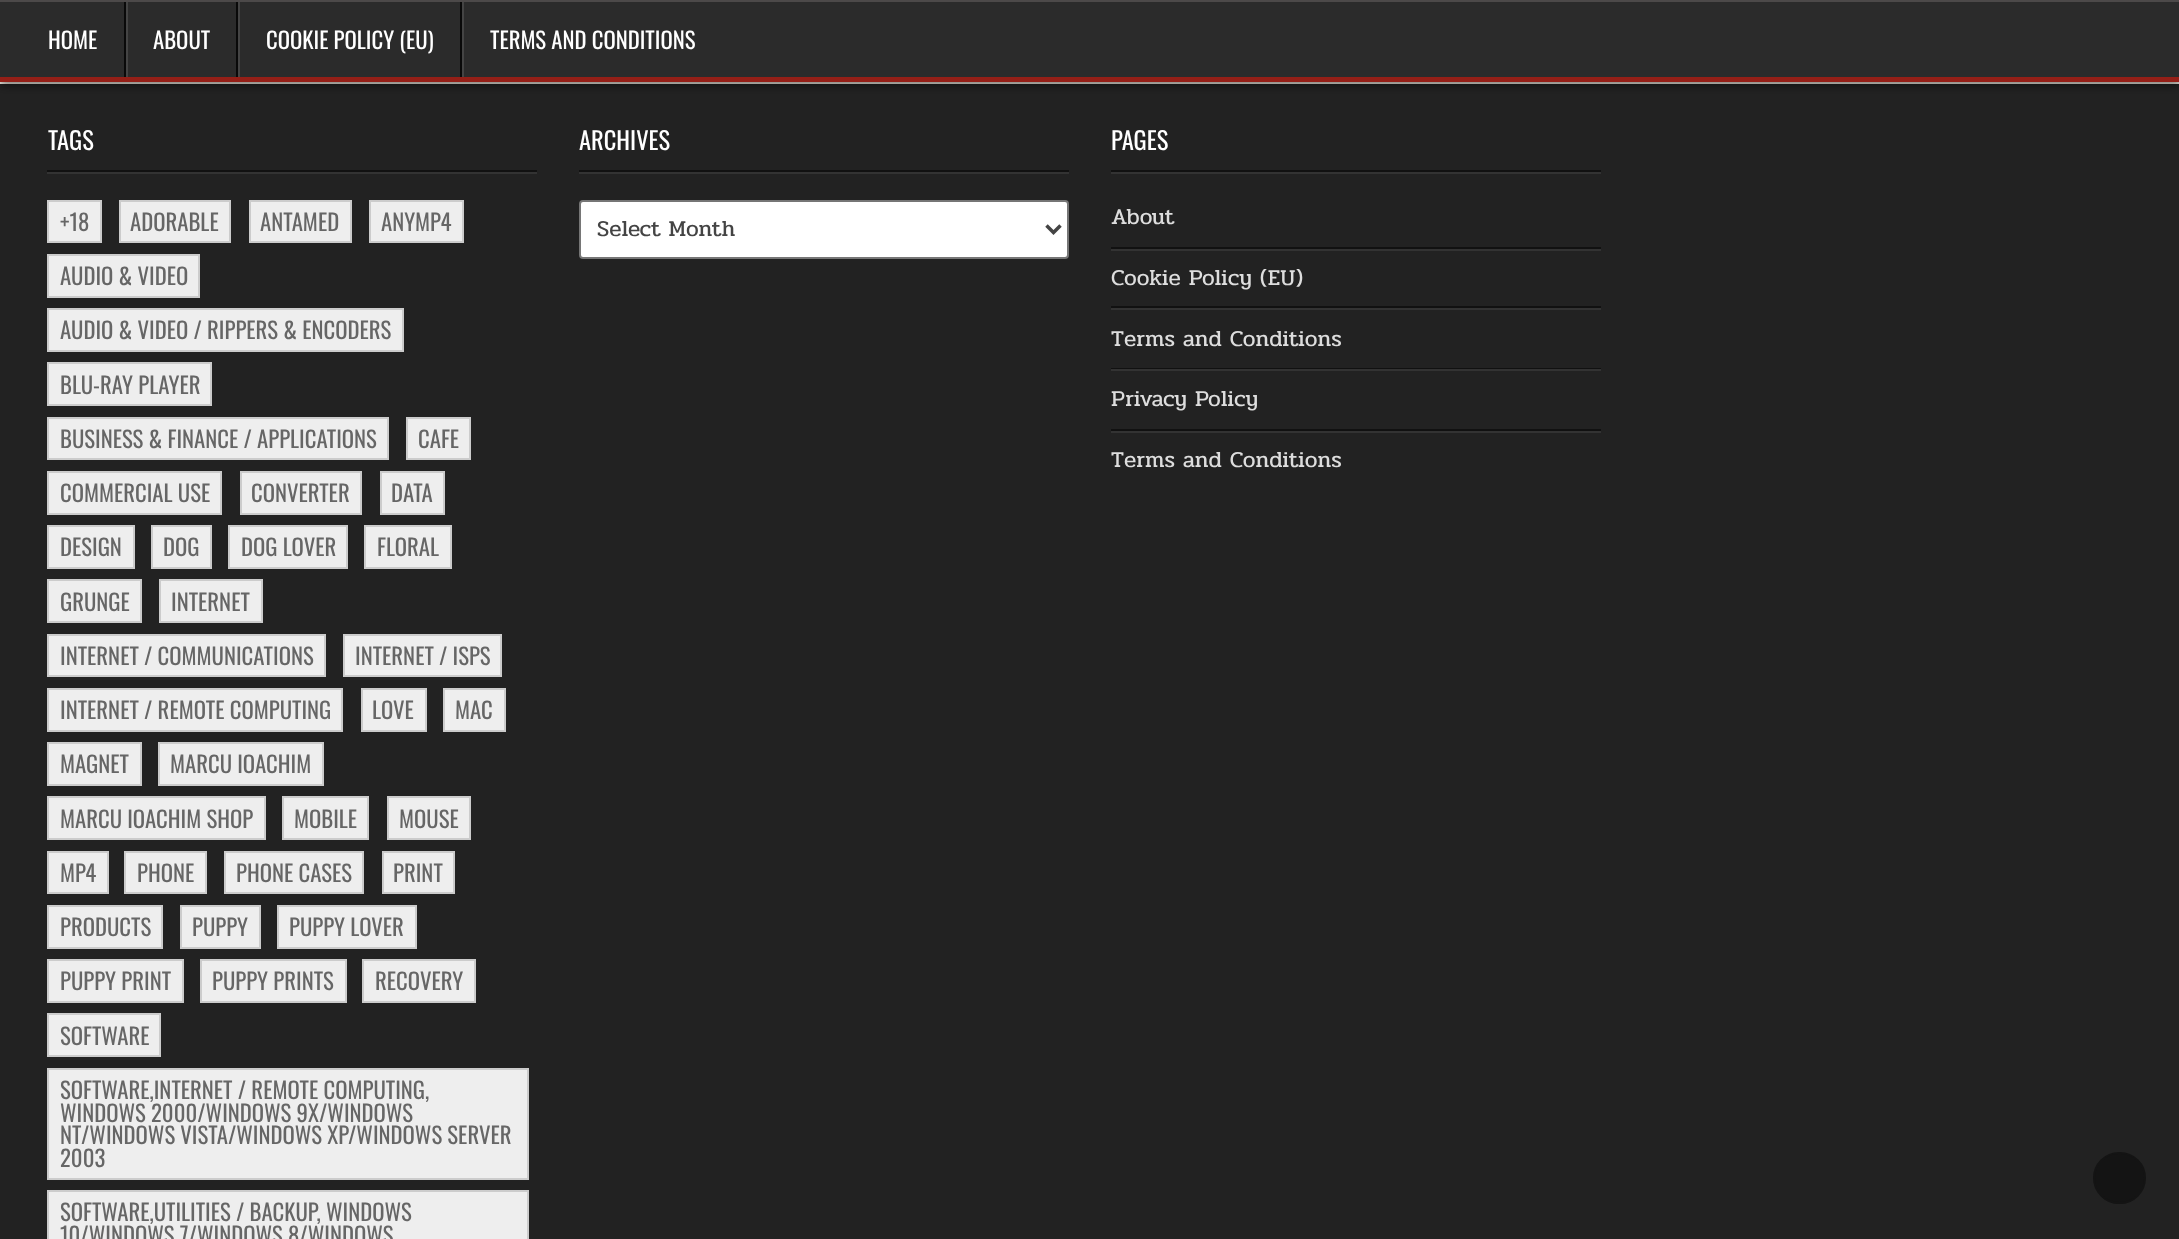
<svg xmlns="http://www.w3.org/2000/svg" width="2179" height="1239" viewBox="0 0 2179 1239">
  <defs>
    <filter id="blur1" x="-50%" y="-200%" width="200%" height="500%"><feGaussianBlur stdDeviation="4.5"/></filter>
  </defs>
  <rect width="100%" height="100%" fill="#fffaf0"/>
  <rect x="0" y="84" width="2179" height="1155" fill="#222222"/>
  <rect x="0" y="4" width="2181" height="82" fill="#000000" fill-opacity="0.5" filter="url(#blur1)"/>
  <rect x="0" y="2" width="2179" height="75" fill="#2b2b2b"/>
  <rect x="0" y="0" width="2179" height="2" fill="#4c4949"/>
  <rect x="0" y="77" width="2179" height="5" fill="#951f17"/>
  <rect x="124" y="2" width="2" height="75" fill="#090909"/>
  <text x="48" y="49" font-family="Oswald" font-size="22.75" fill="#ffffff">HOME</text>
  <rect x="236" y="2" width="2" height="75" fill="#090909"/>
  <rect x="126" y="2" width="2" height="75" fill="#444444"/>
  <text x="153" y="49" font-family="Oswald" font-size="22.75" fill="#ffffff">ABOUT</text>
  <rect x="460" y="2" width="2" height="75" fill="#090909"/>
  <rect x="238" y="2" width="2" height="75" fill="#444444"/>
  <text x="266" y="49" font-family="Oswald" font-size="22.75" fill="#ffffff">COOKIE POLICY (EU)</text>
  <rect x="462" y="2" width="2" height="75" fill="#444444"/>
  <text x="490" y="49" font-family="Oswald" font-size="22.75" fill="#ffffff">TERMS AND CONDITIONS</text>
  <rect x="47" y="172" width="490" height="2" fill="#333333"/>
  <rect x="47" y="170" width="490" height="2" fill="#111111"/>
  <text x="48" y="150" font-family="Oswald" font-size="24.5" fill="#ffffff">TAGS</text>
  <rect x="48" y="201" width="53" height="41" fill="#eeeeee" stroke="#cccccc" stroke-width="2"/>
  <text x="60" y="231" font-family="Oswald" font-size="22.75" fill="#666666">+18</text>
  <rect x="120" y="201" width="110" height="41" fill="#eeeeee" stroke="#cccccc" stroke-width="2"/>
  <text x="130" y="231" font-family="Oswald" font-size="22.75" fill="#666666">ADORABLE</text>
  <rect x="250" y="201" width="101" height="41" fill="#eeeeee" stroke="#cccccc" stroke-width="2"/>
  <text x="260" y="231" font-family="Oswald" font-size="22.75" fill="#666666">ANTAMED</text>
  <rect x="370" y="201" width="93" height="41" fill="#eeeeee" stroke="#cccccc" stroke-width="2"/>
  <text x="381" y="231" font-family="Oswald" font-size="22.75" fill="#666666">ANYMP4</text>
  <rect x="48" y="255" width="151" height="42" fill="#eeeeee" stroke="#cccccc" stroke-width="2"/>
  <text x="60" y="285" font-family="Oswald" font-size="22.75" fill="#666666">AUDIO &amp; VIDEO</text>
  <rect x="48" y="309" width="355" height="42" fill="#eeeeee" stroke="#cccccc" stroke-width="2"/>
  <text x="60" y="339" font-family="Oswald" font-size="22.75" fill="#666666">AUDIO &amp; VIDEO / RIPPERS &amp; ENCODERS</text>
  <rect x="48" y="363" width="163" height="42" fill="#eeeeee" stroke="#cccccc" stroke-width="2"/>
  <text x="60" y="394" font-family="Oswald" font-size="22.75" fill="#666666">BLU-RAY PLAYER</text>
  <rect x="48" y="418" width="340" height="41" fill="#eeeeee" stroke="#cccccc" stroke-width="2"/>
  <text x="60" y="448" font-family="Oswald" font-size="22.75" fill="#666666">BUSINESS &amp; FINANCE / APPLICATIONS</text>
  <rect x="407" y="418" width="63" height="41" fill="#eeeeee" stroke="#cccccc" stroke-width="2"/>
  <text x="418" y="448" font-family="Oswald" font-size="22.75" fill="#666666">CAFE</text>
  <rect x="48" y="472" width="173" height="42" fill="#eeeeee" stroke="#cccccc" stroke-width="2"/>
  <text x="60" y="502" font-family="Oswald" font-size="22.75" fill="#666666">COMMERCIAL USE</text>
  <rect x="241" y="472" width="120" height="42" fill="#eeeeee" stroke="#cccccc" stroke-width="2"/>
  <text x="251" y="502" font-family="Oswald" font-size="22.75" fill="#666666">CONVERTER</text>
  <rect x="381" y="472" width="63" height="42" fill="#eeeeee" stroke="#cccccc" stroke-width="2"/>
  <text x="391" y="502" font-family="Oswald" font-size="22.75" fill="#666666">DATA</text>
  <rect x="48" y="526" width="86" height="42" fill="#eeeeee" stroke="#cccccc" stroke-width="2"/>
  <text x="60" y="556" font-family="Oswald" font-size="22.75" fill="#666666">DESIGN</text>
  <rect x="152" y="526" width="59" height="42" fill="#eeeeee" stroke="#cccccc" stroke-width="2"/>
  <text x="163" y="556" font-family="Oswald" font-size="22.75" fill="#666666">DOG</text>
  <rect x="229" y="526" width="118" height="42" fill="#eeeeee" stroke="#cccccc" stroke-width="2"/>
  <text x="241" y="556" font-family="Oswald" font-size="22.75" fill="#666666">DOG LOVER</text>
  <rect x="365" y="526" width="86" height="42" fill="#eeeeee" stroke="#cccccc" stroke-width="2"/>
  <text x="377" y="556" font-family="Oswald" font-size="22.75" fill="#666666">FLORAL</text>
  <rect x="48" y="580" width="93" height="42" fill="#eeeeee" stroke="#cccccc" stroke-width="2"/>
  <text x="60" y="611" font-family="Oswald" font-size="22.75" fill="#666666">GRUNGE</text>
  <rect x="160" y="580" width="102" height="42" fill="#eeeeee" stroke="#cccccc" stroke-width="2"/>
  <text x="171" y="611" font-family="Oswald" font-size="22.75" fill="#666666">INTERNET</text>
  <rect x="48" y="635" width="277" height="41" fill="#eeeeee" stroke="#cccccc" stroke-width="2"/>
  <text x="60" y="665" font-family="Oswald" font-size="22.75" fill="#666666">INTERNET / COMMUNICATIONS</text>
  <rect x="344" y="635" width="157" height="41" fill="#eeeeee" stroke="#cccccc" stroke-width="2"/>
  <text x="355" y="665" font-family="Oswald" font-size="22.75" fill="#666666">INTERNET / ISPS</text>
  <rect x="48" y="689" width="294" height="42" fill="#eeeeee" stroke="#cccccc" stroke-width="2"/>
  <text x="60" y="719" font-family="Oswald" font-size="22.75" fill="#666666">INTERNET / REMOTE COMPUTING</text>
  <rect x="362" y="689" width="64" height="42" fill="#eeeeee" stroke="#cccccc" stroke-width="2"/>
  <text x="372" y="719" font-family="Oswald" font-size="22.75" fill="#666666">LOVE</text>
  <rect x="444" y="689" width="61" height="42" fill="#eeeeee" stroke="#cccccc" stroke-width="2"/>
  <text x="455" y="719" font-family="Oswald" font-size="22.75" fill="#666666">MAC</text>
  <rect x="48" y="743" width="93" height="42" fill="#eeeeee" stroke="#cccccc" stroke-width="2"/>
  <text x="60" y="773" font-family="Oswald" font-size="22.75" fill="#666666">MAGNET</text>
  <rect x="159" y="743" width="164" height="42" fill="#eeeeee" stroke="#cccccc" stroke-width="2"/>
  <text x="170" y="773" font-family="Oswald" font-size="22.75" fill="#666666">MARCU IOACHIM</text>
  <rect x="48" y="797" width="217" height="42" fill="#eeeeee" stroke="#cccccc" stroke-width="2"/>
  <text x="60" y="828" font-family="Oswald" font-size="22.75" fill="#666666">MARCU IOACHIM SHOP</text>
  <rect x="283" y="797" width="85" height="42" fill="#eeeeee" stroke="#cccccc" stroke-width="2"/>
  <text x="294" y="828" font-family="Oswald" font-size="22.75" fill="#666666">MOBILE</text>
  <rect x="388" y="797" width="82" height="42" fill="#eeeeee" stroke="#cccccc" stroke-width="2"/>
  <text x="399" y="828" font-family="Oswald" font-size="22.75" fill="#666666">MOUSE</text>
  <rect x="48" y="852" width="60" height="41" fill="#eeeeee" stroke="#cccccc" stroke-width="2"/>
  <text x="60" y="882" font-family="Oswald" font-size="22.75" fill="#666666">MP4</text>
  <rect x="125" y="852" width="81" height="41" fill="#eeeeee" stroke="#cccccc" stroke-width="2"/>
  <text x="137" y="882" font-family="Oswald" font-size="22.75" fill="#666666">PHONE</text>
  <rect x="225" y="852" width="138" height="41" fill="#eeeeee" stroke="#cccccc" stroke-width="2"/>
  <text x="236" y="882" font-family="Oswald" font-size="22.75" fill="#666666">PHONE CASES</text>
  <rect x="383" y="852" width="71" height="41" fill="#eeeeee" stroke="#cccccc" stroke-width="2"/>
  <text x="393" y="882" font-family="Oswald" font-size="22.75" fill="#666666">PRINT</text>
  <rect x="48" y="906" width="114" height="42" fill="#eeeeee" stroke="#cccccc" stroke-width="2"/>
  <text x="60" y="936" font-family="Oswald" font-size="22.75" fill="#666666">PRODUCTS</text>
  <rect x="181" y="906" width="79" height="42" fill="#eeeeee" stroke="#cccccc" stroke-width="2"/>
  <text x="192" y="936" font-family="Oswald" font-size="22.75" fill="#666666">PUPPY</text>
  <rect x="278" y="906" width="138" height="42" fill="#eeeeee" stroke="#cccccc" stroke-width="2"/>
  <text x="289" y="936" font-family="Oswald" font-size="22.75" fill="#666666">PUPPY LOVER</text>
  <rect x="48" y="960" width="135" height="42" fill="#eeeeee" stroke="#cccccc" stroke-width="2"/>
  <text x="60" y="990" font-family="Oswald" font-size="22.75" fill="#666666">PUPPY PRINT</text>
  <rect x="201" y="960" width="145" height="42" fill="#eeeeee" stroke="#cccccc" stroke-width="2"/>
  <text x="212" y="990" font-family="Oswald" font-size="22.75" fill="#666666">PUPPY PRINTS</text>
  <rect x="363" y="960" width="112" height="42" fill="#eeeeee" stroke="#cccccc" stroke-width="2"/>
  <text x="375" y="990" font-family="Oswald" font-size="22.75" fill="#666666">RECOVERY</text>
  <rect x="48" y="1014" width="112" height="42" fill="#eeeeee" stroke="#cccccc" stroke-width="2"/>
  <text x="60" y="1045" font-family="Oswald" font-size="22.75" fill="#666666">SOFTWARE</text>
  <rect x="48" y="1069" width="480" height="110" fill="#eeeeee" stroke="#cccccc" stroke-width="2"/>
  <text x="60" y="1099" font-family="Oswald" font-size="22.75" fill="#666666">SOFTWARE,INTERNET / REMOTE COMPUTING,</text>
  <text x="60" y="1122" font-family="Oswald" font-size="22.75" fill="#666666">WINDOWS 2000/WINDOWS 9X/WINDOWS</text>
  <text x="60" y="1144" font-family="Oswald" font-size="22.75" fill="#666666">NT/WINDOWS VISTA/WINDOWS XP/WINDOWS SERVER</text>
  <text x="60" y="1167" font-family="Oswald" font-size="22.75" fill="#666666">2003</text>
  <rect x="48" y="1191" width="480" height="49" fill="#eeeeee" stroke="#cccccc" stroke-width="2"/>
  <text x="60" y="1221" font-family="Oswald" font-size="22.75" fill="#666666">SOFTWARE,UTILITIES / BACKUP, WINDOWS</text>
  <text x="60" y="1244" font-family="Oswald" font-size="22.75" fill="#666666">10/WINDOWS 7/WINDOWS 8/WINDOWS</text>
  <rect x="579" y="172" width="490" height="2" fill="#333333"/>
  <rect x="579" y="170" width="490" height="2" fill="#111111"/>
  <text x="579" y="150" font-family="Oswald" font-size="24.5" fill="#ffffff">ARCHIVES</text>
  <rect x="580" y="201" width="488" height="57" rx="3" fill="#ffffff" stroke="#767676" stroke-width="2"/>
  <path d="M1046.5 225.5L1053.5 232.5L1060.5 225.5" fill="none" stroke="#444444" stroke-width="3.5"/>
  <text x="597" y="236" font-family="Pridi" font-size="22.75" fill="#444444">Select Month</text>
  <rect x="1111" y="172" width="490" height="2" fill="#333333"/>
  <rect x="1111" y="170" width="490" height="2" fill="#111111"/>
  <text x="1111" y="150" font-family="Oswald" font-size="24.5" fill="#ffffff">PAGES</text>
  <rect x="1111" y="247" width="490" height="2" fill="#111111"/>
  <text x="1111" y="224" font-family="Pridi" font-size="22.75" fill="#dddddd">About</text>
  <rect x="1111" y="249" width="490" height="2" fill="#333333"/>
  <rect x="1111" y="306" width="490" height="2" fill="#111111"/>
  <text x="1111" y="285" font-family="Pridi" font-size="22.75" fill="#dddddd">Cookie Policy (EU)</text>
  <rect x="1111" y="308" width="490" height="2" fill="#333333"/>
  <rect x="1111" y="368" width="490" height="1" fill="#111111"/>
  <text x="1111" y="346" font-family="Pridi" font-size="22.75" fill="#dddddd">Terms and Conditions</text>
  <rect x="1111" y="369" width="490" height="2" fill="#333333"/>
  <rect x="1111" y="429" width="490" height="2" fill="#111111"/>
  <text x="1111" y="406" font-family="Pridi" font-size="22.75" fill="#dddddd">Privacy Policy</text>
  <rect x="1111" y="431" width="490" height="2" fill="#333333"/>
  <text x="1111" y="467" font-family="Pridi" font-size="22.75" fill="#dddddd">Terms and Conditions</text>
  <rect x="2094" y="1153" width="51" height="50" rx="25" fill="#141414" stroke="#141414" stroke-width="2"/>
</svg>
